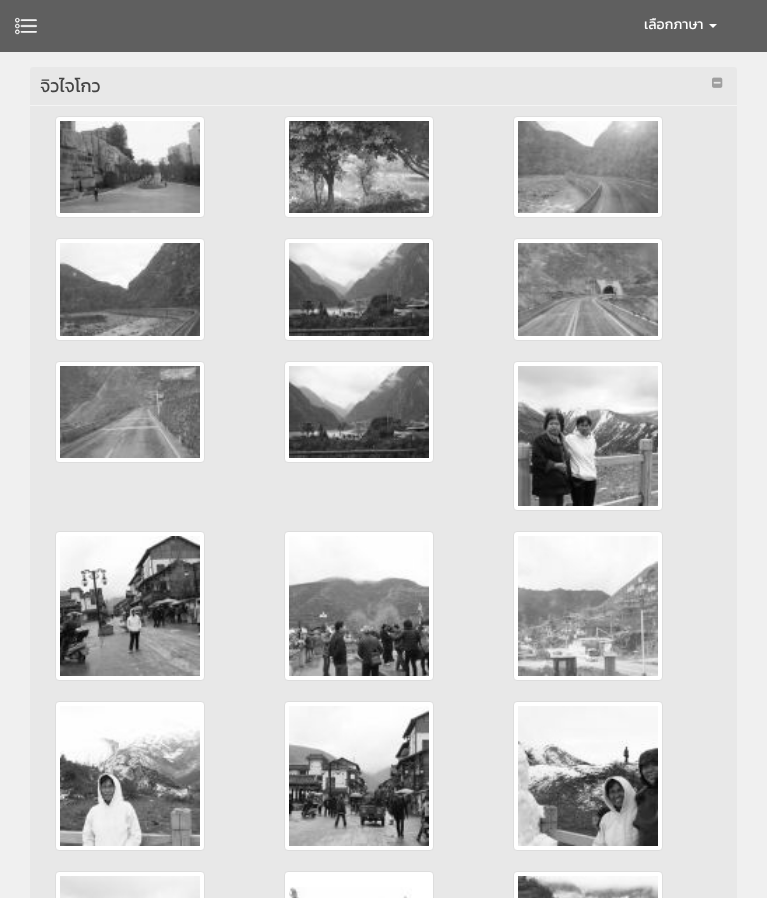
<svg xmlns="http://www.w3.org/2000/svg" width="767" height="898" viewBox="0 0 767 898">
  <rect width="100%" height="100%" fill="#f0f0f0"/>
  <rect x="0" y="0" width="767" height="52" fill="#5f5f5f"/>
  <image x="15" y="17" width="22" height="18" href="img1.png"/>
  <text x="644" y="29" font-family="Kanit" font-size="14" fill="#ffffff">เลือกภาษา</text>
  <path d="M709 24H717L713 28Z" fill="#ffffff"/>
  <rect x="30" y="67" width="707" height="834" rx="3" fill="#e8e8e8"/>
  <rect x="30" y="105" width="707" height="1" fill="#f4f4f4"/>
  <text x="40" y="92" font-family="Kanit" font-size="18" fill="#444444">จิวไจโกว</text>
  <image x="712" y="77" width="11" height="11" href="img2.png"/>
  <rect x="55.5" y="116.5" width="149" height="101" rx="3.5" fill="#ffffff" stroke="#dddddd"/>
  <image x="60" y="121" width="140" height="92" href="img3.png"/>
  <rect x="284.5" y="116.5" width="149" height="101" rx="3.5" fill="#ffffff" stroke="#dddddd"/>
  <image x="289" y="121" width="140" height="92" href="img4.png"/>
  <rect x="513.5" y="116.5" width="149" height="101" rx="3.5" fill="#ffffff" stroke="#dddddd"/>
  <image x="518" y="121" width="140" height="92" href="img5.png"/>
  <rect x="55.5" y="238.5" width="149" height="102" rx="3.5" fill="#ffffff" stroke="#dddddd"/>
  <image x="60" y="243" width="140" height="93" href="img6.png"/>
  <rect x="284.5" y="238.5" width="149" height="102" rx="3.5" fill="#ffffff" stroke="#dddddd"/>
  <image x="289" y="243" width="140" height="93" href="img7.png"/>
  <rect x="513.5" y="238.5" width="149" height="102" rx="3.5" fill="#ffffff" stroke="#dddddd"/>
  <image x="518" y="243" width="140" height="93" href="img8.png"/>
  <rect x="55.5" y="361.5" width="149" height="101" rx="3.5" fill="#ffffff" stroke="#dddddd"/>
  <image x="60" y="366" width="140" height="92" href="img9.png"/>
  <rect x="284.5" y="361.5" width="149" height="101" rx="3.5" fill="#ffffff" stroke="#dddddd"/>
  <image x="289" y="366" width="140" height="92" href="img10.png"/>
  <rect x="513.5" y="361.5" width="149" height="149" rx="3.5" fill="#ffffff" stroke="#dddddd"/>
  <image x="518" y="366" width="140" height="140" href="img11.png"/>
  <rect x="55.5" y="531.5" width="149" height="149" rx="3.5" fill="#ffffff" stroke="#dddddd"/>
  <image x="60" y="536" width="140" height="140" href="img12.png"/>
  <rect x="284.5" y="531.5" width="149" height="149" rx="3.5" fill="#ffffff" stroke="#dddddd"/>
  <image x="289" y="536" width="140" height="140" href="img13.png"/>
  <rect x="513.5" y="531.5" width="149" height="149" rx="3.5" fill="#ffffff" stroke="#dddddd"/>
  <image x="518" y="536" width="140" height="140" href="img14.png"/>
  <rect x="55.5" y="701.5" width="149" height="149" rx="3.5" fill="#ffffff" stroke="#dddddd"/>
  <image x="60" y="706" width="140" height="140" href="img15.png"/>
  <rect x="284.5" y="701.5" width="149" height="149" rx="3.5" fill="#ffffff" stroke="#dddddd"/>
  <image x="289" y="706" width="140" height="140" href="img16.png"/>
  <rect x="513.5" y="701.5" width="149" height="149" rx="3.5" fill="#ffffff" stroke="#dddddd"/>
  <image x="518" y="706" width="140" height="140" href="img17.png"/>
  <rect x="55.5" y="871.5" width="149" height="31" rx="3.5" fill="#ffffff" stroke="#dddddd"/>
  <image x="60" y="876" width="140" height="22" href="img18.png"/>
  <rect x="284.5" y="871.5" width="149" height="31" rx="3.5" fill="#ffffff" stroke="#dddddd"/>
  <image x="289" y="887" width="123" height="11" href="img19.png"/>
  <rect x="513.5" y="871.5" width="149" height="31" rx="3.5" fill="#ffffff" stroke="#dddddd"/>
  <image x="518" y="876" width="140" height="22" href="img20.png"/>
</svg>
